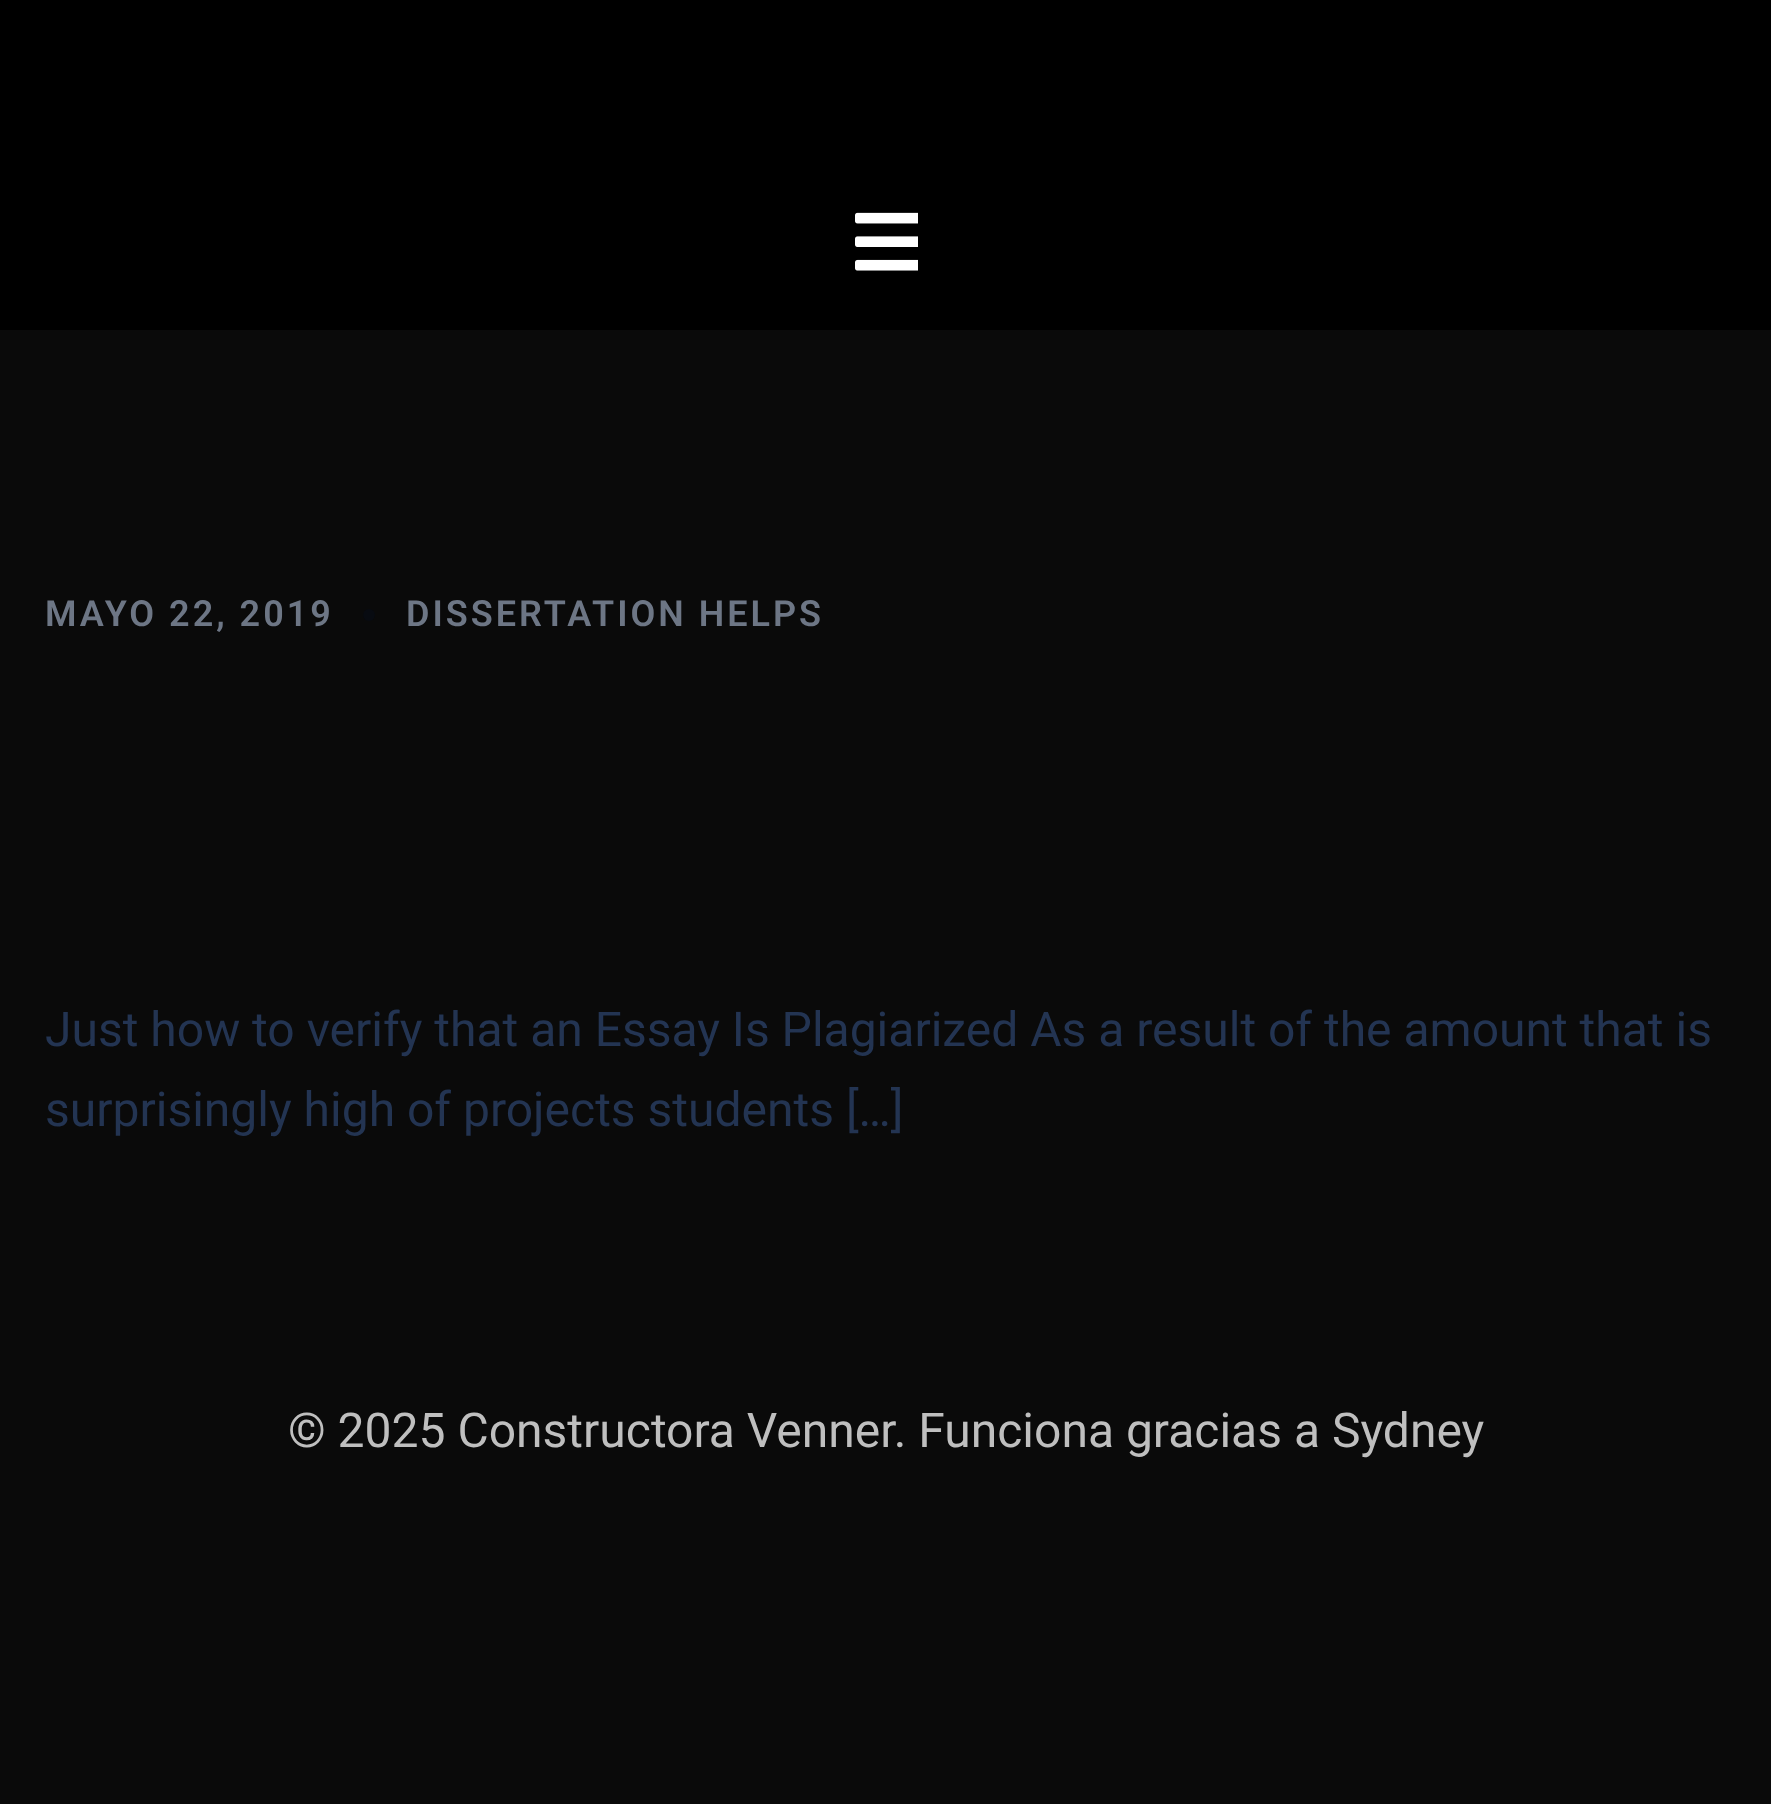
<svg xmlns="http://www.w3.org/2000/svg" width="1771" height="1804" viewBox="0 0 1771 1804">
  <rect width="100%" height="100%" fill="#0a0a0a"/>
  <rect x="0" y="0" width="1771" height="330" fill="#000000"/>
  <image x="855" y="212" width="63" height="59" href="img1.png"/>
  <text x="45" y="626" font-family="Roboto" font-size="36" font-weight="600" letter-spacing="3" fill="#6d7685">MAYO 22, 2019</text>
  <circle cx="369" cy="615" r="6" fill="#080b11"/>
  <text x="406" y="626" font-family="Roboto" font-size="36" font-weight="600" letter-spacing="3" fill="#6d7685">DISSERTATION HELPS</text>
  <text x="45" y="1046" font-family="Roboto" font-size="48" fill="#233452">Just how to verify that an Essay Is Plagiarized As a result of the amount that is</text>
  <text x="45" y="1126" font-family="Roboto" font-size="48" fill="#233452">surprisingly high of projects students […]</text>
  <text x="288" y="1447" font-family="Roboto" font-size="48" fill="#bfbfbf">© 2025 Constructora Venner. Funciona gracias a Sydney</text>
</svg>
